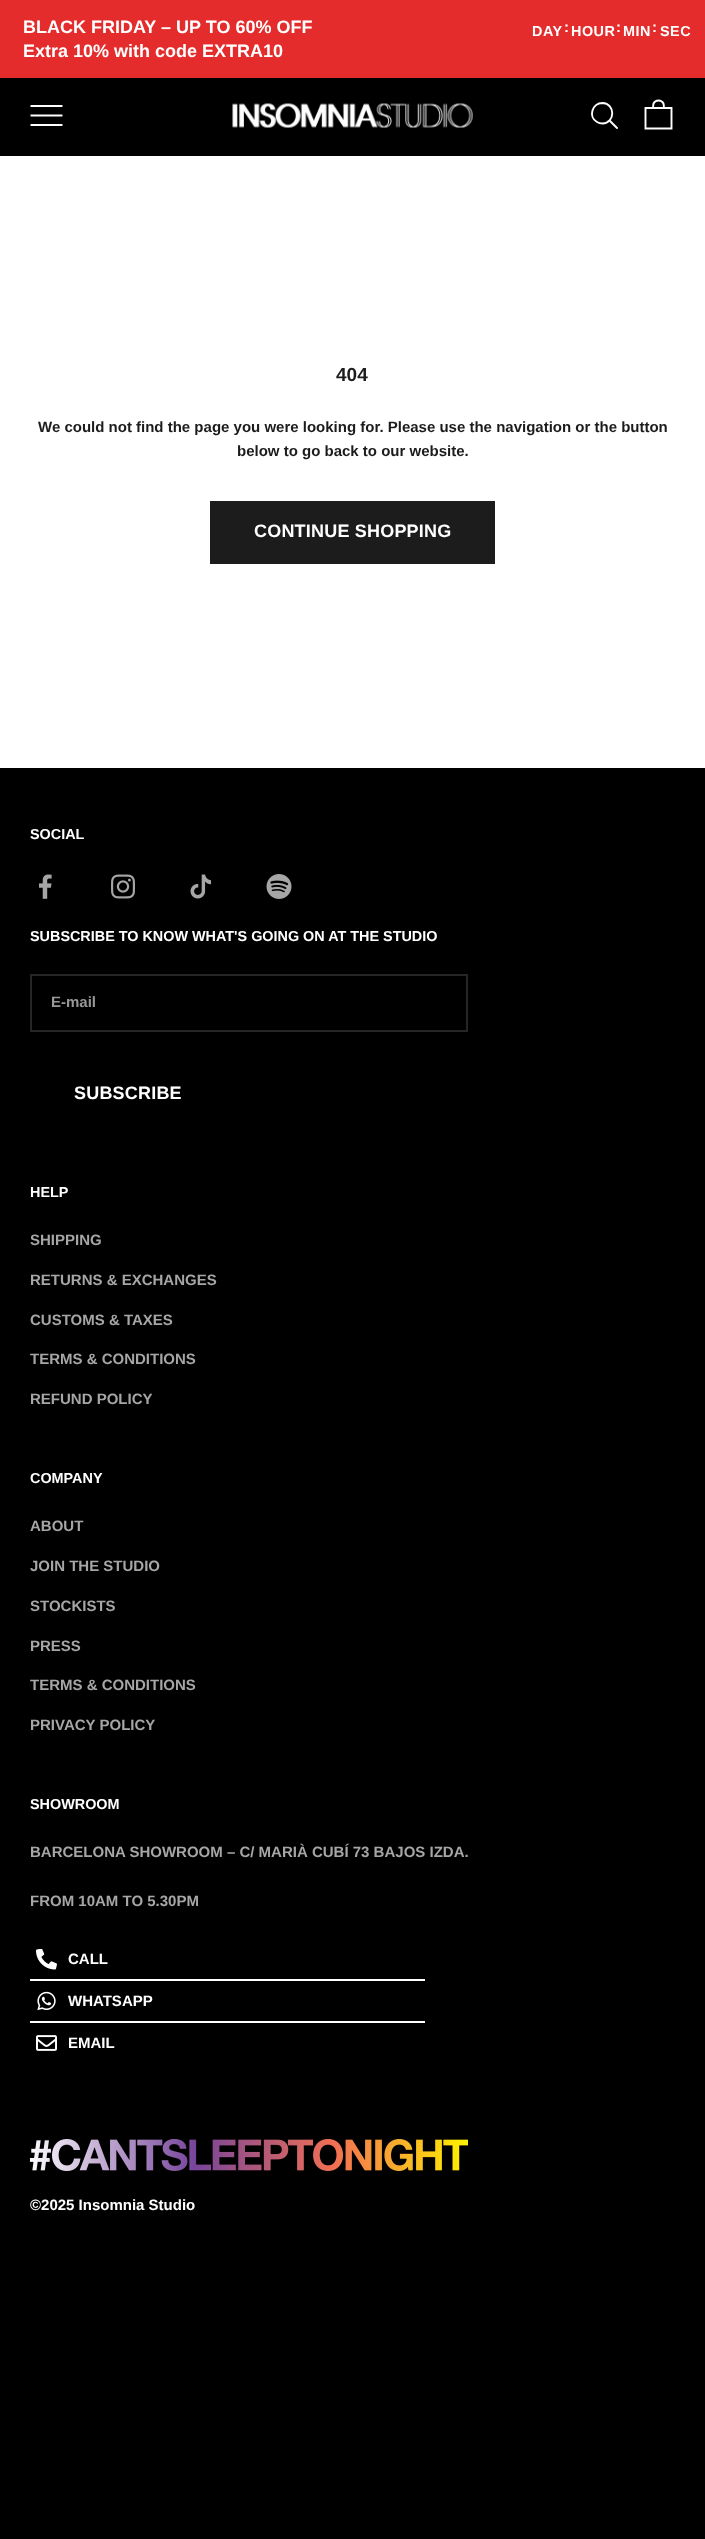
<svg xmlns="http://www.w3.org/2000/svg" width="705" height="2539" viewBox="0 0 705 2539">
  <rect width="100%" height="100%" fill="#000000"/>
  <rect x="0" y="0" width="705" height="78" fill="#e32c2b"/>
  <text x="23" y="33" font-family="Liberation Sans" font-size="18" font-weight="bold" fill="#ffffff">BLACK FRIDAY – UP TO 60% OFF</text>
  <text x="23" y="57" font-family="Liberation Sans" font-size="18" font-weight="bold" fill="#ffffff">Extra 10% with code EXTRA10</text>
  <text x="532" y="36" font-family="Liberation Sans" font-size="14.4" font-weight="bold" letter-spacing="0.5" fill="#ffffff">DAY</text>
  <text x="564" y="32" font-family="Liberation Sans" font-size="15" font-weight="bold" letter-spacing="0.5" fill="#ffffff">:</text>
  <text x="571" y="36" font-family="Liberation Sans" font-size="14.4" font-weight="bold" letter-spacing="0.5" fill="#ffffff">HOUR</text>
  <text x="616" y="32" font-family="Liberation Sans" font-size="15" font-weight="bold" letter-spacing="0.5" fill="#ffffff">:</text>
  <text x="623" y="36" font-family="Liberation Sans" font-size="14.4" font-weight="bold" letter-spacing="0.5" fill="#ffffff">MIN</text>
  <text x="652" y="32" font-family="Liberation Sans" font-size="15" font-weight="bold" letter-spacing="0.5" fill="#ffffff">:</text>
  <text x="660" y="36" font-family="Liberation Sans" font-size="14.4" font-weight="bold" letter-spacing="0.5" fill="#ffffff">SEC</text>
  <path d="M31.5 125H61.5M31.5 115.5H61.5M31.5 106H61.5" fill="none" stroke="#ffffff" stroke-width="1.9" stroke-linecap="square"/>
  <image x="232" y="103" width="241" height="25" href="img1.png"/>
  <path d="M602.5 103C592 103 588 117 597 122C598.5 123 600.5 123.5 602.5 123.5C615.5 123 615.5 103.5 602.5 103Z" fill="none" stroke="#ffffff" stroke-width="1.9"/>
  <path d="M610 121L617 128" fill="none" stroke="#ffffff" stroke-width="1.9" stroke-linecap="round"/>
  <path d="M671.5 128.5V108H645.5V128.5ZM653 107L653.5 103.5C655.5 99.5 661.5 99.5 663.5 103.5L664 107" fill="none" stroke="#ffffff" stroke-width="1.9"/>
  <rect x="0" y="156" width="705" height="612" fill="#ffffff"/>
  <text x="336" y="381" font-family="Liberation Sans" font-size="19" font-weight="bold" fill="#1c1c1c">404</text>
  <text x="38" y="432" font-family="Liberation Sans" font-size="15" font-weight="bold" fill="#1c1c1c">We could not find the page you were looking for. Please use the navigation or the button</text>
  <text x="237" y="456" font-family="Liberation Sans" font-size="15" font-weight="bold" fill="#1c1c1c">below to go back to our website.</text>
  <rect x="211" y="502" width="283" height="61" fill="#1c1c1c" stroke="#1c1c1c" stroke-width="2"/>
  <text x="254" y="537" font-family="Liberation Sans" font-size="18" font-weight="bold" letter-spacing="0.2" fill="#ffffff">CONTINUE SHOPPING</text>
  <text x="30" y="839" font-family="Liberation Sans" font-size="14.4" font-weight="bold" fill="#ffffff">SOCIAL</text>
  <image x="39" y="874" width="13" height="25" href="img2.png"/>
  <image x="111" y="874" width="24" height="25" href="img3.png"/>
  <image x="190" y="874" width="22" height="25" href="img4.png"/>
  <image x="266" y="874" width="26" height="25" href="img5.png"/>
  <text x="30" y="941" font-family="Liberation Sans" font-size="14.4" font-weight="bold" fill="#ffffff">SUBSCRIBE TO KNOW WHAT'S GOING ON AT THE STUDIO</text>
  <rect x="31" y="975" width="436" height="56" fill="none" stroke="#262626" stroke-width="2"/>
  <text x="51" y="1007" font-family="Liberation Sans" font-size="15" font-weight="bold" fill="#999999">E-mail</text>
  <text x="74" y="1099" font-family="Liberation Sans" font-size="18" font-weight="bold" letter-spacing="0.2" fill="#ffffff">SUBSCRIBE</text>
  <text x="30" y="1197" font-family="Liberation Sans" font-size="14.4" font-weight="bold" fill="#ffffff">HELP</text>
  <text x="30" y="1245" font-family="Liberation Sans" font-size="15" font-weight="bold" fill="#a6a6a6">SHIPPING</text>
  <text x="30" y="1285" font-family="Liberation Sans" font-size="15" font-weight="bold" fill="#a6a6a6">RETURNS &amp; EXCHANGES</text>
  <text x="30" y="1325" font-family="Liberation Sans" font-size="15" font-weight="bold" fill="#a6a6a6">CUSTOMS &amp; TAXES</text>
  <text x="30" y="1364" font-family="Liberation Sans" font-size="15" font-weight="bold" fill="#a6a6a6">TERMS &amp; CONDITIONS</text>
  <text x="30" y="1404" font-family="Liberation Sans" font-size="15" font-weight="bold" fill="#a6a6a6">REFUND POLICY</text>
  <text x="30" y="1483" font-family="Liberation Sans" font-size="14.4" font-weight="bold" fill="#ffffff">COMPANY</text>
  <text x="30" y="1531" font-family="Liberation Sans" font-size="15" font-weight="bold" fill="#a6a6a6">ABOUT</text>
  <text x="30" y="1571" font-family="Liberation Sans" font-size="15" font-weight="bold" fill="#a6a6a6">JOIN THE STUDIO</text>
  <text x="30" y="1611" font-family="Liberation Sans" font-size="15" font-weight="bold" fill="#a6a6a6">STOCKISTS</text>
  <text x="30" y="1651" font-family="Liberation Sans" font-size="15" font-weight="bold" fill="#a6a6a6">PRESS</text>
  <text x="30" y="1690" font-family="Liberation Sans" font-size="15" font-weight="bold" fill="#a6a6a6">TERMS &amp; CONDITIONS</text>
  <text x="30" y="1730" font-family="Liberation Sans" font-size="15" font-weight="bold" fill="#a6a6a6">PRIVACY POLICY</text>
  <text x="30" y="1809" font-family="Liberation Sans" font-size="14.4" font-weight="bold" fill="#ffffff">SHOWROOM</text>
  <text x="30" y="1857" font-family="Liberation Sans" font-size="15" font-weight="bold" fill="#a6a6a6">BARCELONA SHOWROOM – C/ MARIÀ CUBÍ 73 BAJOS IZDA.</text>
  <text x="30" y="1906" font-family="Liberation Sans" font-size="15" font-weight="bold" fill="#a6a6a6">FROM 10AM TO 5.30PM</text>
  <image x="36" y="1949" width="21" height="21" href="img6.png"/>
  <text x="68" y="1964" font-family="Liberation Sans" font-size="15" font-weight="bold" fill="#ffffff">CALL</text>
  <rect x="30" y="1979" width="395" height="2" fill="#ffffff"/>
  <image x="37" y="1991" width="19" height="20" href="img7.png"/>
  <text x="68" y="2006" font-family="Liberation Sans" font-size="15" font-weight="bold" fill="#ffffff">WHATSAPP</text>
  <rect x="30" y="2021" width="395" height="2" fill="#ffffff"/>
  <image x="36" y="2035" width="21" height="16" href="img8.png"/>
  <text x="68" y="2048" font-family="Liberation Sans" font-size="15" font-weight="bold" fill="#ffffff">EMAIL</text>
  <image x="30" y="2139" width="438" height="32" href="img9.png"/>
  <text x="30" y="2210" font-family="Liberation Sans" font-size="15" font-weight="bold" fill="#ffffff">©2025 Insomnia Studio</text>
</svg>
